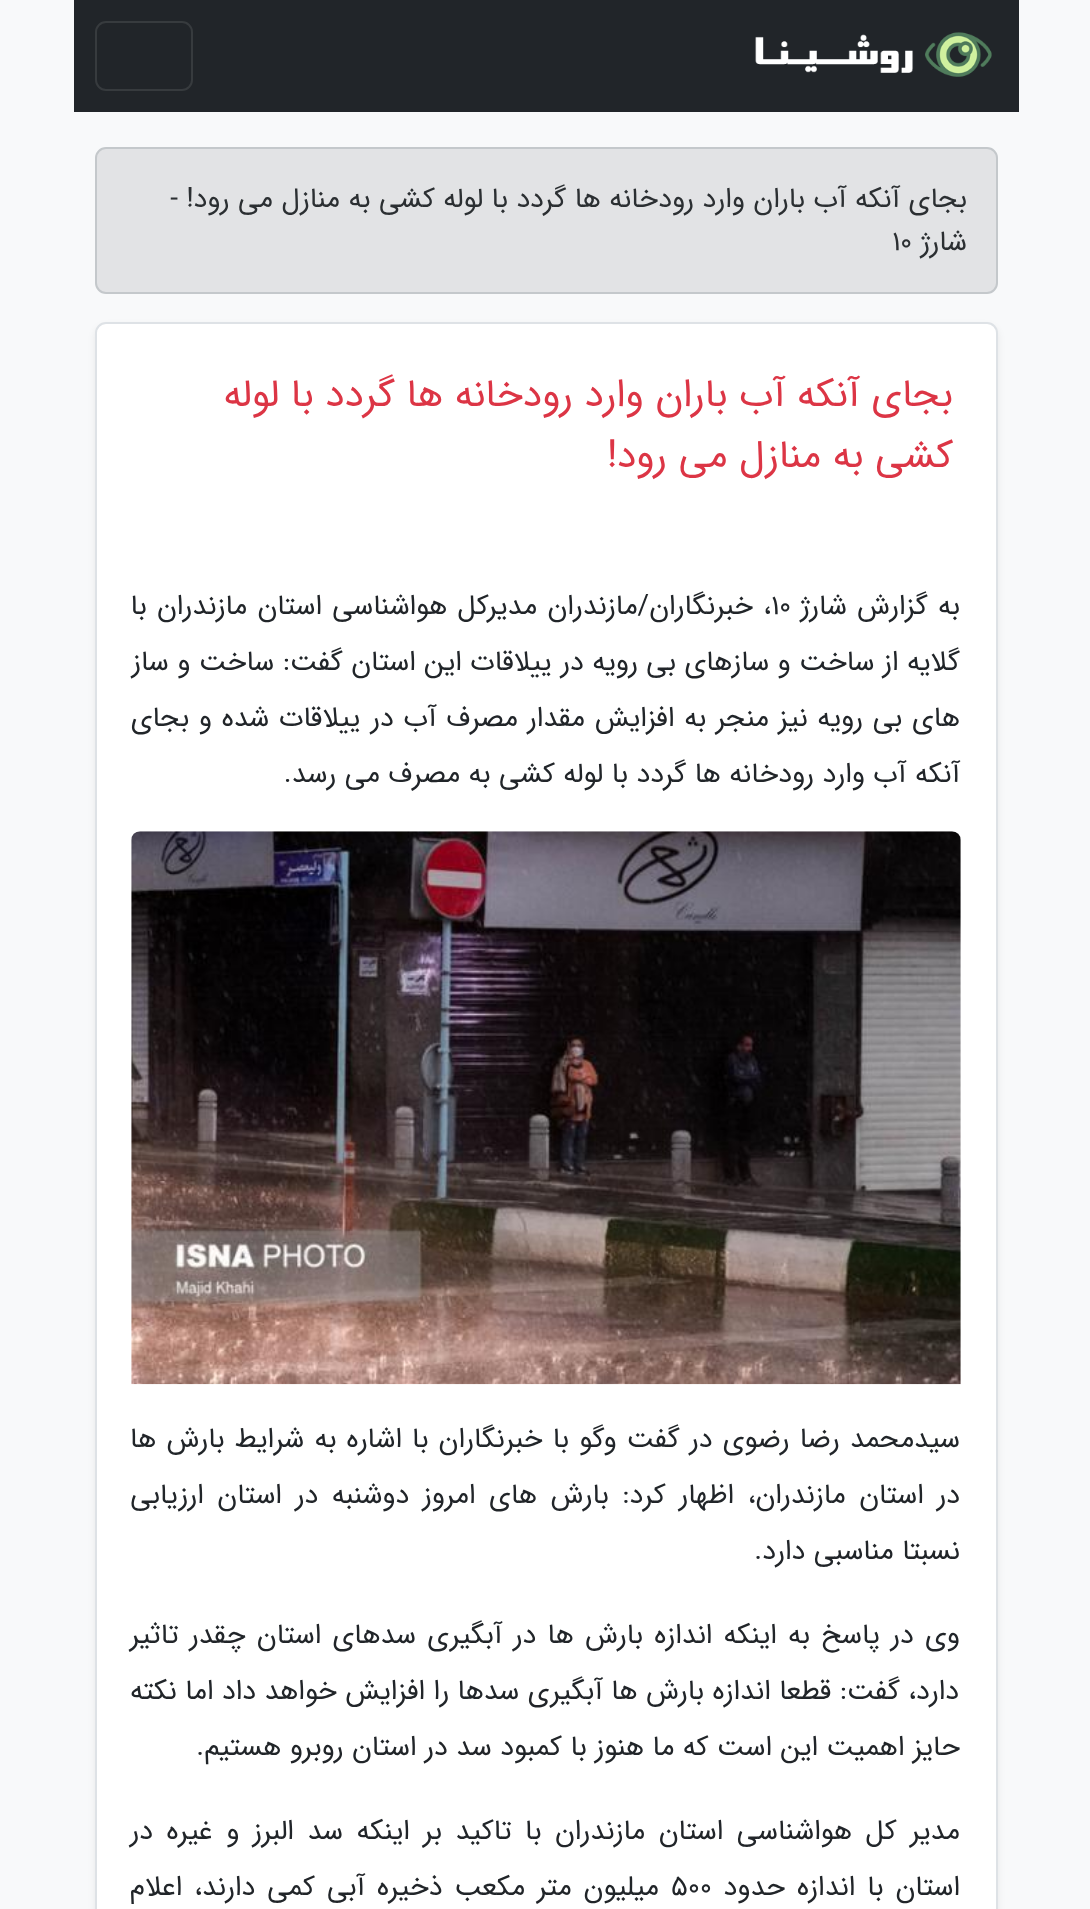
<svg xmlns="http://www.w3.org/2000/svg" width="1090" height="1909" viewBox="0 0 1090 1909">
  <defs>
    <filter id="blur1" x="-50%" y="-200%" width="200%" height="500%"><feGaussianBlur stdDeviation="3.5"/></filter>
  </defs>
  <rect width="100%" height="100%" fill="#f8f9fa"/>
  <rect x="74" y="0" width="945" height="112" fill="#212529"/>
  <image x="755" y="32" width="237" height="45" href="img1.png"/>
  <rect x="96" y="22" width="96" height="68" rx="10" fill="none" stroke="#373b3e" stroke-width="2"/>
  <rect x="96" y="148" width="901" height="145" rx="10" fill="#e2e3e5" stroke="#c4c8cb" stroke-width="2"/>
  <text x="967" y="207" font-family="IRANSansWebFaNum" font-size="28" direction="rtl" fill="#2b2f32">بجای آنکه آب باران وارد رودخانه ها گردد با لوله کشی به منازل می رود! -</text>
  <text x="967" y="250" font-family="IRANSansWebFaNum" font-size="28" direction="rtl" fill="#2b2f32">شارژ</text>
  <text x="892" y="250" font-family="IRANSansWebFaNum" font-size="28" fill="#2b2f32">10</text>
  <rect x="95" y="326" width="903" height="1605" rx="11" fill="#000000" fill-opacity="0.07" filter="url(#blur1)"/>
  <rect x="96" y="323" width="901" height="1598" rx="10" fill="#ffffff" stroke="#dee2e6" stroke-width="2"/>
  <text x="953" y="406" font-family="IRANSansWebFaNum" font-size="39" direction="rtl" fill="#dc3545">بجای آنکه آب باران وارد رودخانه ها گردد با لوله</text>
  <text x="953" y="467" font-family="IRANSansWebFaNum" font-size="39" direction="rtl" fill="#dc3545">کشی به منازل می رود!</text>
  <text x="960" y="614" word-spacing="1.75" font-family="IRANSansWebFaNum" font-size="28" direction="rtl" fill="#212529">به گزارش شارژ</text>
  <text x="771" y="614" font-family="IRANSansWebFaNum" font-size="28" fill="#212529">10</text>
  <text x="771" y="614" word-spacing="1.75" font-family="IRANSansWebFaNum" font-size="28" direction="rtl" fill="#212529">، خبرنگاران/مازندران مدیرکل هواشناسی استان مازندران با</text>
  <text x="960" y="670" font-family="IRANSansWebFaNum" font-size="28" direction="rtl" fill="#212529">گلایه از ساخت و سازهای بی رویه در ییلاقات این استان گفت: ساخت و ساز</text>
  <text x="960" y="726" word-spacing="1.25" font-family="IRANSansWebFaNum" font-size="28" direction="rtl" fill="#212529">های بی رویه نیز منجر به افزایش مقدار مصرف آب در ییلاقات شده و بجای</text>
  <text x="960" y="782" font-family="IRANSansWebFaNum" font-size="28" direction="rtl" fill="#212529">آنکه آب وارد رودخانه ها گردد با لوله کشی به مصرف می رسد.</text>
  <image x="131" y="831" width="830" height="554" href="img2.png"/>
  <text x="960" y="1447" word-spacing="1.7" font-family="IRANSansWebFaNum" font-size="28" direction="rtl" fill="#212529">سیدمحمد رضا رضوی در گفت وگو با خبرنگاران با اشاره به شرایط بارش ها</text>
  <text x="960" y="1503" word-spacing="5.1" font-family="IRANSansWebFaNum" font-size="28" direction="rtl" fill="#212529">در استان مازندران، اظهار کرد: بارش های امروز دوشنبه در استان ارزیابی</text>
  <text x="960" y="1559" font-family="IRANSansWebFaNum" font-size="28" direction="rtl" fill="#212529">نسبتا مناسبی دارد.</text>
  <text x="960" y="1643" word-spacing="2.75" font-family="IRANSansWebFaNum" font-size="28" direction="rtl" fill="#212529">وی در پاسخ به اینکه اندازه بارش ها در آبگیری سدهای استان چقدر تاثیر</text>
  <text x="959" y="1699" font-family="IRANSansWebFaNum" font-size="28" direction="rtl" fill="#212529">دارد، گفت: قطعا اندازه بارش ها آبگیری سدها را افزایش خواهد داد اما نکته</text>
  <text x="960" y="1755" font-family="IRANSansWebFaNum" font-size="28" direction="rtl" fill="#212529">حایز اهمیت این است که ما هنوز با کمبود سد در استان روبرو هستیم.</text>
  <text x="960" y="1839" word-spacing="5.1" font-family="IRANSansWebFaNum" font-size="28" direction="rtl" fill="#212529">مدیر کل هواشناسی استان مازندران با تاکید بر اینکه سد البرز و غیره در</text>
  <text x="960" y="1895" word-spacing="3.5" font-family="IRANSansWebFaNum" font-size="28" direction="rtl" fill="#212529">استان با اندازه حدود</text>
  <text x="671" y="1895" font-family="IRANSansWebFaNum" font-size="28" fill="#212529">500</text>
  <text x="659" y="1895" word-spacing="3.5" font-family="IRANSansWebFaNum" font-size="28" direction="rtl" fill="#212529">میلیون متر مکعب ذخیره آبی کمی دارند، اعلام</text>
</svg>
